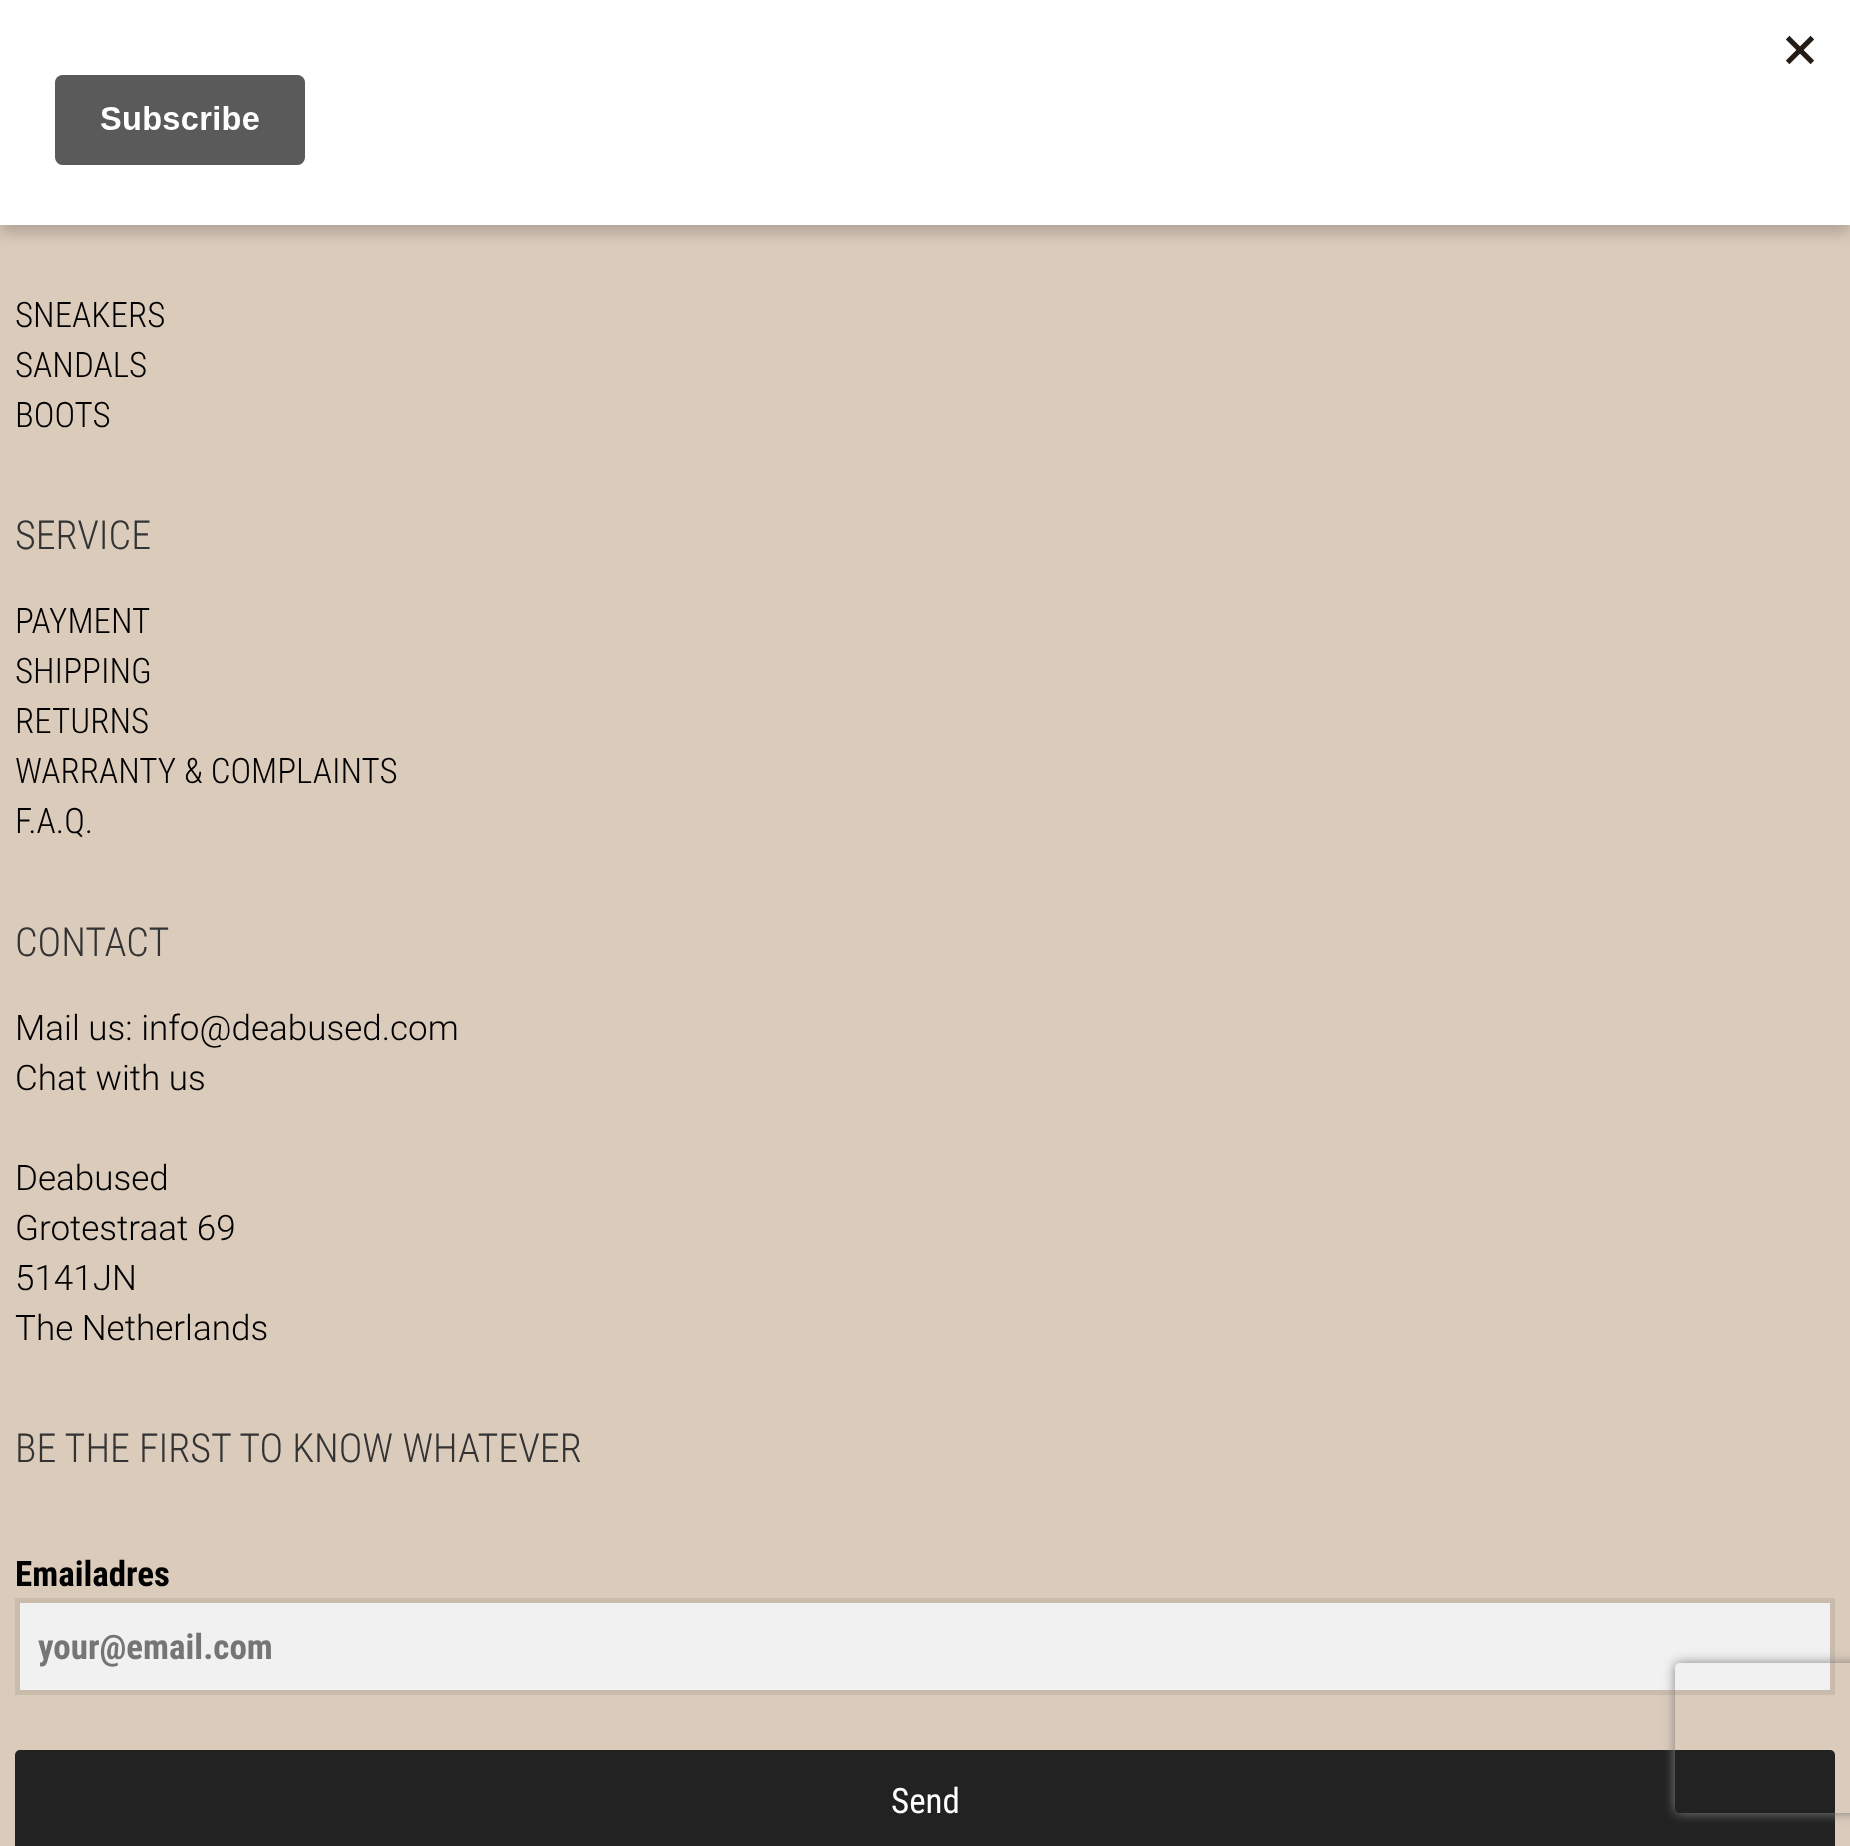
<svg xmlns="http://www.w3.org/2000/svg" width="1850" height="1846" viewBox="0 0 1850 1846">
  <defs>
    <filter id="blur1" x="-50%" y="-200%" width="200%" height="500%"><feGaussianBlur stdDeviation="7.5"/></filter>
    <clipPath id="clip1"><path d="M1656 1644H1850V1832H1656ZM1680 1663H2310C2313 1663 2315 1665 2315 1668V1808C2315 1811 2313 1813 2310 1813H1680C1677 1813 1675 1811 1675 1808V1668C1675 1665 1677 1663 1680 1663Z" clip-rule="evenodd"/></clipPath>
    <filter id="blur2" x="-50%" y="-200%" width="200%" height="500%"><feGaussianBlur stdDeviation="6"/></filter>
  </defs>
  <rect width="100%" height="100%" fill="#dbcbbb"/>
  <rect x="0" y="8" width="1850" height="225" fill="#000000" fill-opacity="0.2" filter="url(#blur1)"/>
  <rect x="0" y="0" width="1850" height="225" fill="#ffffff"/>
  <image x="55" y="35" width="1759" height="130" href="img1.png"/>
  <text x="15" y="327" font-family="Roboto Condensed" font-size="35" font-weight="300" fill="#000000">SNEAKERS</text>
  <text x="15" y="377" font-family="Roboto Condensed" font-size="35" font-weight="300" fill="#000000">SANDALS</text>
  <text x="15" y="427" font-family="Roboto Condensed" font-size="35" font-weight="300" fill="#000000">BOOTS</text>
  <text x="15" y="549" font-family="Roboto Condensed" font-size="40" font-weight="300" fill="#333333">SERVICE</text>
  <text x="15" y="633" font-family="Roboto Condensed" font-size="35" font-weight="300" fill="#000000">PAYMENT</text>
  <text x="15" y="683" font-family="Roboto Condensed" font-size="35" font-weight="300" fill="#000000">SHIPPING</text>
  <text x="15" y="733" font-family="Roboto Condensed" font-size="35" font-weight="300" fill="#000000">RETURNS</text>
  <text x="15" y="783" font-family="Roboto Condensed" font-size="35" font-weight="300" fill="#000000">WARRANTY &amp; COMPLAINTS</text>
  <text x="15" y="833" font-family="Roboto Condensed" font-size="35" font-weight="300" fill="#000000">F.A.Q.</text>
  <text x="15" y="956" font-family="Roboto Condensed" font-size="40" font-weight="300" fill="#333333">CONTACT</text>
  <text x="15" y="1040" font-family="Roboto" font-size="35" font-weight="300" fill="#000000">Mail us: info@deabused.com</text>
  <text x="15" y="1090" font-family="Roboto" font-size="35" font-weight="300" fill="#000000">Chat with us</text>
  <text x="15" y="1190" font-family="Roboto" font-size="35" font-weight="300" fill="#000000">Deabused</text>
  <text x="15" y="1240" font-family="Roboto" font-size="35" font-weight="300" fill="#000000">Grotestraat 69</text>
  <text x="15" y="1290" font-family="Roboto" font-size="35" font-weight="300" fill="#000000">5141JN</text>
  <text x="15" y="1340" font-family="Roboto" font-size="35" font-weight="300" fill="#000000">The Netherlands</text>
  <text x="15" y="1462" font-family="Roboto Condensed" font-size="40" font-weight="300" fill="#333333">BE THE FIRST TO KNOW WHATEVER</text>
  <text x="15" y="1586" font-family="Roboto Condensed" font-size="35" font-weight="bold" fill="#000000">Emailadres</text>
  <rect x="17.5" y="1600.5" width="1815" height="92" fill="#f1f1f1" stroke="#cabcad" stroke-width="5"/>
  <text x="38" y="1659" font-family="Roboto Condensed" font-size="35" font-weight="bold" fill="#757575">your@email.com</text>
  <rect x="15" y="1750" width="1820" height="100" rx="5" fill="#222222"/>
  <text x="891" y="1813" font-family="Roboto Condensed" font-size="35" fill="#ffffff">Send</text>
  <g clip-path="url(#clip1)">
    <rect x="1675" y="1663" width="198" height="150" rx="5" fill="#808080" filter="url(#blur2)"/>
  </g>
</svg>
